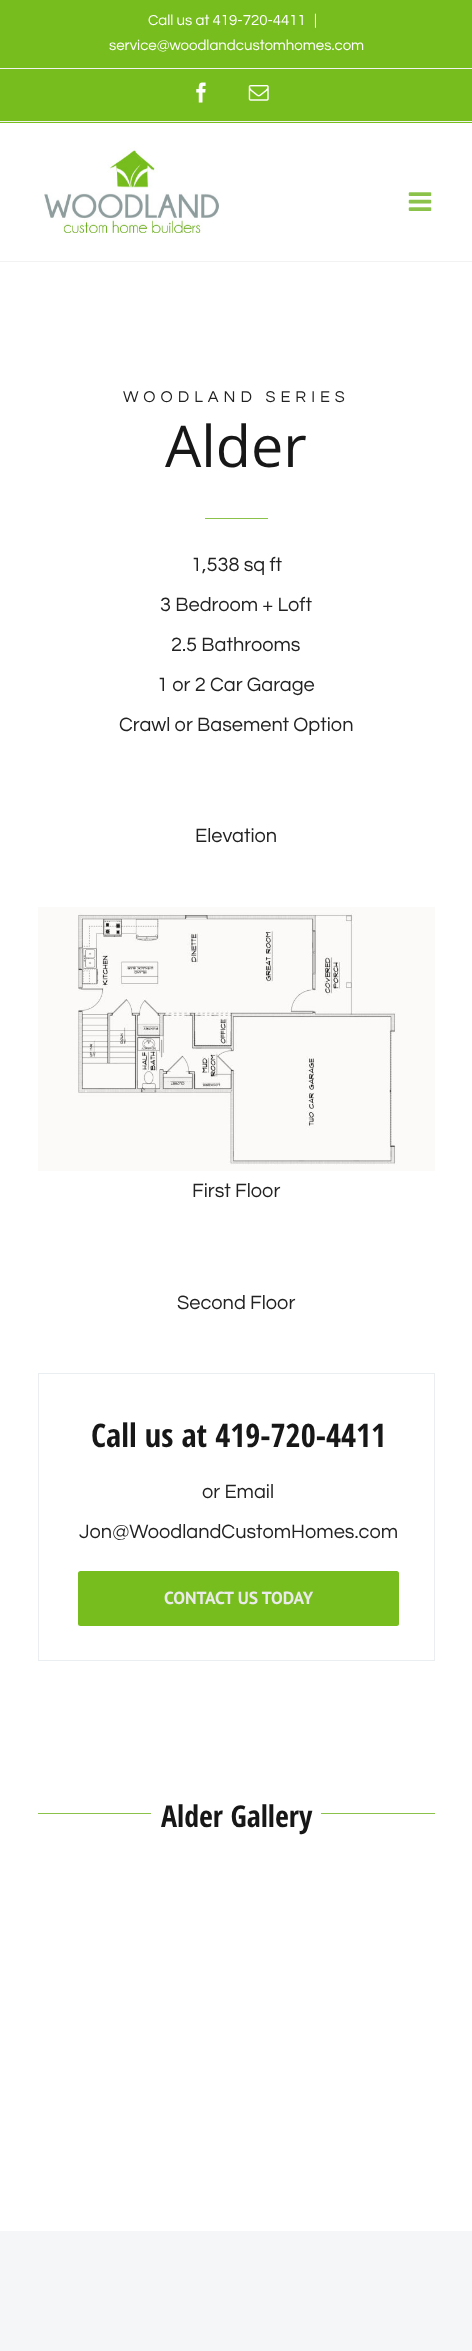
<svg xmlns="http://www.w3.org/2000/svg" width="472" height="2351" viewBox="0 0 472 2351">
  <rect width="100%" height="100%" fill="#ffffff"/>
  <rect x="0" y="0" width="472" height="123" fill="#76bd1d"/>
  <rect x="0" y="121" width="472" height="1" fill="#f2f2f2"/>
  <rect x="0" y="68" width="472" height="1" fill="#f2f2f2"/>
  <text x="148" y="25" font-family="Questrial" font-size="15" fill="#ffffff">Call us at 419-720-4411</text>
  <text x="314" y="25" font-family="Questrial" font-size="15" fill="#ffffff">|</text>
  <text x="109" y="50" font-family="Questrial" font-size="15" fill="#ffffff">service@woodlandcustomhomes.com</text>
  <image x="196" y="82" width="10" height="21" href="img1.png"/>
  <image x="248" y="85" width="21" height="16" href="img2.png"/>
  <rect x="0" y="261" width="472" height="1" fill="#f2f2f2"/>
  <image x="44" y="147" width="175" height="86" href="img3.png"/>
  <image x="408" y="192" width="24" height="19" href="img4.png"/>
  <text x="123" y="402" font-family="Questrial" font-size="16.25" letter-spacing="5" fill="#222222">WOODLAND SERIES</text>
  <text x="165" y="467" font-family="Open Sans" font-size="57.5" fill="#171717">Alder</text>
  <rect x="205" y="518" width="63" height="1" fill="#8bc34a"/>
  <text x="191" y="571" font-family="Questrial" font-size="20" fill="#222222">1,538 sq ft</text>
  <text x="160" y="611" font-family="Questrial" font-size="20" fill="#222222">3 Bedroom + Loft</text>
  <text x="171" y="651" font-family="Questrial" font-size="20" fill="#222222">2.5 Bathrooms</text>
  <text x="157" y="691" font-family="Questrial" font-size="20" fill="#222222">1 or 2 Car Garage</text>
  <text x="119" y="731" font-family="Questrial" font-size="20" fill="#222222">Crawl or Basement Option</text>
  <text x="195" y="842" font-family="Questrial" font-size="20" fill="#222222">Elevation</text>
  <image x="38" y="907" width="397" height="264" href="img5.png"/>
  <text x="192" y="1197" font-family="Questrial" font-size="20" fill="#222222">First Floor</text>
  <text x="177" y="1309" font-family="Questrial" font-size="20" fill="#222222">Second Floor</text>
  <rect x="38.5" y="1373.5" width="396" height="287" fill="none" stroke="#ebeef1"/>
  <text x="91" y="1447" font-family="Open Sans Condensed" font-size="32.5" font-weight="bold" fill="#171717">Call us at 419-720-4411</text>
  <text x="202" y="1498" font-family="Questrial" font-size="20" fill="#222222">or Email</text>
  <text x="79" y="1538" font-family="Questrial" font-size="20" fill="#222222">Jon@WoodlandCustomHomes.com</text>
  <rect x="78" y="1571" width="321" height="55" rx="2.5" fill="#76bd1d"/>
  <text x="164" y="1604" font-family="PT Sans" font-size="17.5" font-weight="bold" fill="#eaeaea">CONTACT US TODAY</text>
  <rect x="38" y="1813" width="113" height="1" fill="#8bc34a"/>
  <text x="161" y="1827" font-family="Open Sans Condensed" font-size="30" font-weight="bold" fill="#171717">Alder Gallery</text>
  <rect x="321" y="1813" width="114" height="1" fill="#8bc34a"/>
  <rect x="0" y="2231" width="472" height="120" fill="#f4f6f8"/>
</svg>
